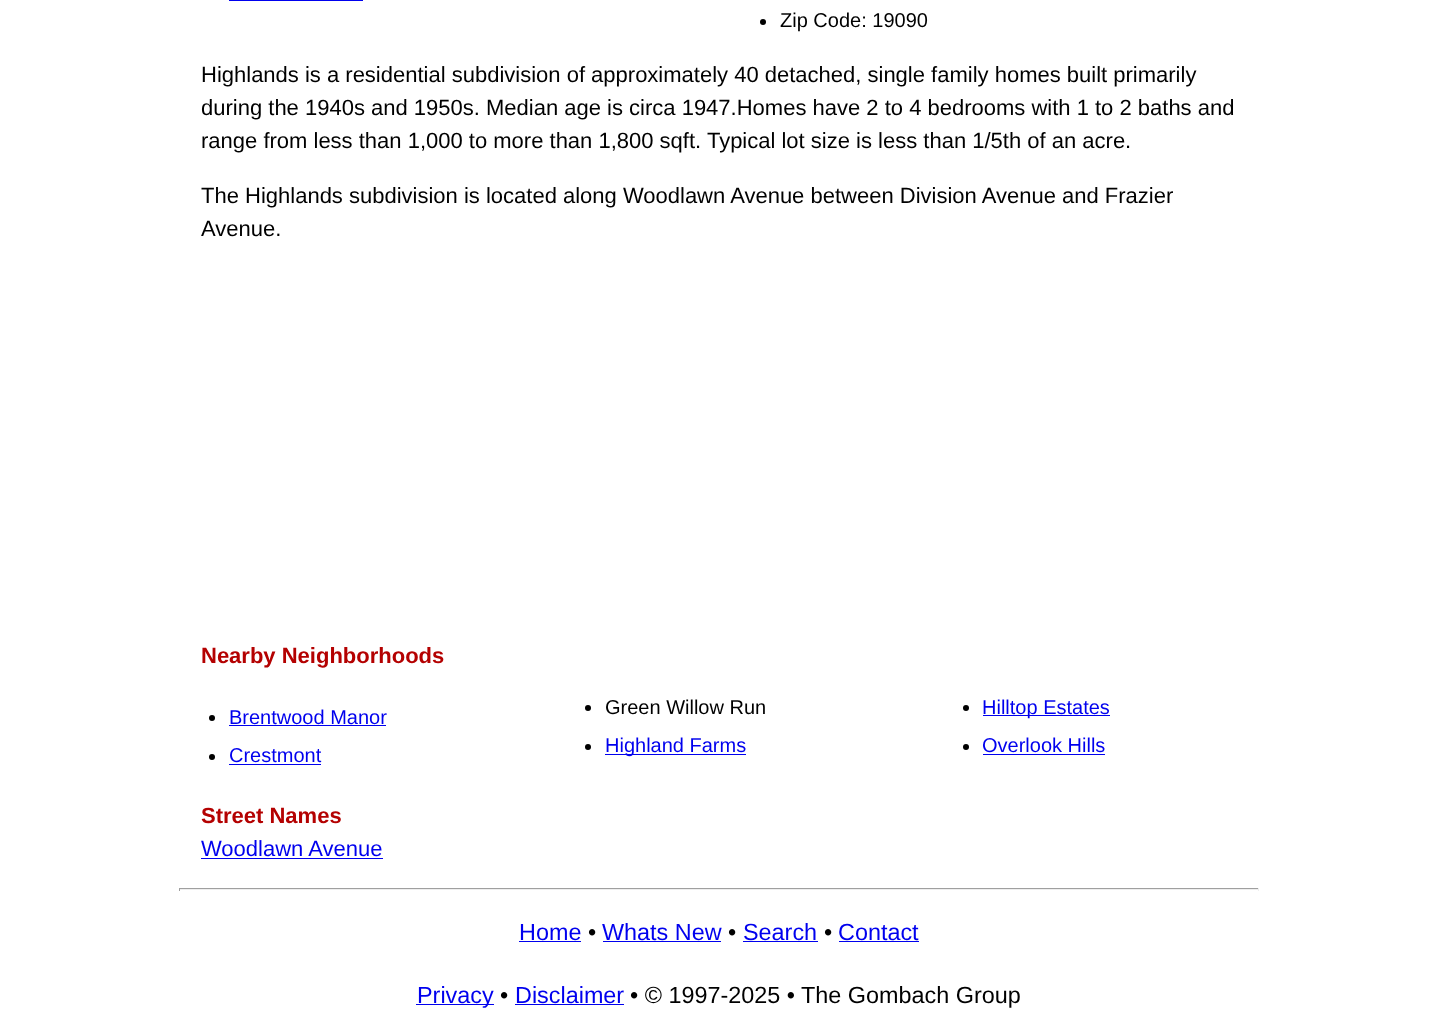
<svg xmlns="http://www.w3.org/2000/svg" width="1437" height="1034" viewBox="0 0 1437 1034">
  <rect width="100%" height="100%" fill="#ffffff"/>
  <rect x="229" y="0" width="134" height="1" fill="#0000ee"/>
  <circle cx="763" cy="22" r="3" fill="#000000"/>
  <text x="780" y="27" font-family="Liberation Sans" font-size="20" fill="#000000">Zip Code: 19090</text>
  <text x="201" y="82" font-family="Liberation Sans" font-size="22" fill="#000000">Highlands is a residential subdivision of approximately 40 detached, single family homes built primarily</text>
  <text x="201" y="115" font-family="Liberation Sans" font-size="22" fill="#000000">during the 1940s and 1950s. Median age is circa 1947.Homes have 2 to 4 bedrooms with 1 to 2 baths and</text>
  <text x="201" y="148" font-family="Liberation Sans" font-size="22" fill="#000000">range from less than 1,000 to more than 1,800 sqft. Typical lot size is less than 1/5th of an acre.</text>
  <text x="201" y="203" font-family="Liberation Sans" font-size="22" fill="#000000">The Highlands subdivision is located along Woodlawn Avenue between Division Avenue and Frazier</text>
  <text x="201" y="236" font-family="Liberation Sans" font-size="22" fill="#000000">Avenue.</text>
  <text x="201" y="663" font-family="Liberation Sans" font-size="22" font-weight="bold" fill="#b40101">Nearby Neighborhoods</text>
  <circle cx="212" cy="718" r="3" fill="#000000"/>
  <text x="229" y="724" font-family="Liberation Sans" font-size="20" fill="#0000ee">Brentwood Manor</text>
  <rect x="229" y="725" width="157" height="1" fill="#0000ee"/>
  <circle cx="588" cy="708" r="3" fill="#000000"/>
  <text x="605" y="714" font-family="Liberation Sans" font-size="20" fill="#000000">Green Willow Run</text>
  <circle cx="966" cy="708" r="3" fill="#000000"/>
  <rect x="983" y="715" width="127" height="1" fill="#0000ee"/>
  <text x="982" y="714" font-family="Liberation Sans" font-size="20" fill="#0000ee">Hilltop Estates</text>
  <circle cx="588" cy="747" r="3" fill="#000000"/>
  <rect x="605" y="754" width="141" height="1" fill="#0000ee"/>
  <text x="605" y="752" font-family="Liberation Sans" font-size="20" fill="#0000ee">Highland Farms</text>
  <circle cx="966" cy="747" r="3" fill="#000000"/>
  <text x="982" y="752" font-family="Liberation Sans" font-size="20" fill="#0000ee">Overlook Hills</text>
  <rect x="983" y="754" width="122" height="1" fill="#0000ee"/>
  <circle cx="212" cy="757" r="3" fill="#000000"/>
  <text x="229" y="762" font-family="Liberation Sans" font-size="20" fill="#0000ee">Crestmont</text>
  <rect x="229" y="764" width="92" height="1" fill="#0000ee"/>
  <text x="201" y="823" font-family="Liberation Sans" font-size="22" font-weight="bold" fill="#b40101">Street Names</text>
  <text x="201" y="856" font-family="Liberation Sans" font-size="22" fill="#0000ee">Woodlawn Avenue</text>
  <rect x="201" y="858" width="182" height="1" fill="#0000ee"/>
  <rect x="179" y="888" width="1080" height="1" fill="#9f9f9f"/>
  <rect x="1258" y="888" width="1" height="3" fill="#eeeeee"/>
  <rect x="179" y="889" width="1080" height="1" fill="#eeeeee"/>
  <rect x="179" y="888" width="1" height="3" fill="#9f9f9f"/>
  <text x="519" y="940" font-family="Liberation Sans" font-size="23.4" fill="#0000ee">Home</text>
  <rect x="519" y="941" width="62" height="1" fill="#0000ee"/>
  <text x="588" y="940" font-family="Liberation Sans" font-size="23.4" fill="#000000">•</text>
  <text x="602" y="940" font-family="Liberation Sans" font-size="23.4" fill="#0000ee">Whats New</text>
  <rect x="603" y="941" width="118" height="1" fill="#0000ee"/>
  <text x="728" y="940" font-family="Liberation Sans" font-size="23.4" fill="#000000">•</text>
  <text x="743" y="940" font-family="Liberation Sans" font-size="23.4" fill="#0000ee">Search</text>
  <rect x="743" y="941" width="75" height="1" fill="#0000ee"/>
  <text x="824" y="940" font-family="Liberation Sans" font-size="23.4" fill="#000000">•</text>
  <text x="838" y="940" font-family="Liberation Sans" font-size="23.4" fill="#0000ee">Contact</text>
  <rect x="839" y="941" width="80" height="1" fill="#0000ee"/>
  <rect x="416" y="1004" width="78" height="1" fill="#0000ee"/>
  <text x="417" y="1003" font-family="Liberation Sans" font-size="23.4" fill="#0000ee">Privacy</text>
  <text x="500" y="1003" font-family="Liberation Sans" font-size="23.4" fill="#000000">•</text>
  <text x="515" y="1003" font-family="Liberation Sans" font-size="23.4" fill="#0000ee">Disclaimer</text>
  <rect x="515" y="1004" width="109" height="1" fill="#0000ee"/>
  <text x="630" y="1003" font-family="Liberation Sans" font-size="23.4" fill="#000000">• © 1997-2025 • The Gombach Group</text>
</svg>
